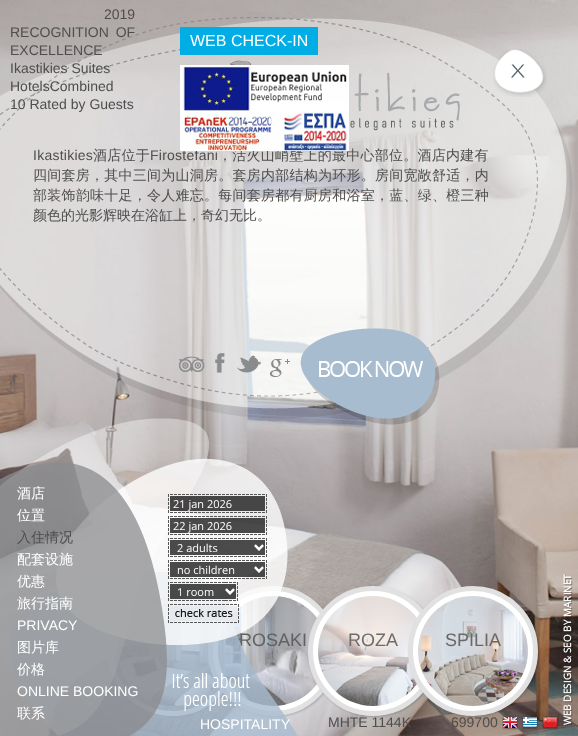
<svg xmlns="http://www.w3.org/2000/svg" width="578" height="736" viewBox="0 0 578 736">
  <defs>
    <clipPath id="clip1"><path d="M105 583H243V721H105ZM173 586C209 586 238 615 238 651C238 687 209 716 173 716C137 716 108 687 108 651C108 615 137 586 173 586Z" clip-rule="evenodd"/></clipPath>
    <filter id="blur1" x="-50%" y="-200%" width="200%" height="500%"><feGaussianBlur stdDeviation="1"/></filter>
  </defs>
  <rect width="100%" height="100%" fill="#ffffff"/>
  <image x="0" y="735" width="578" height="1" href="img2.png"/>
  <image x="0" y="0" width="578" height="736" href="img1.png"/>
  <image x="0" y="17" width="573" height="402" href="img6.png"/>
  <text x="104" y="19" font-family="Liberation Sans" font-size="14" fill="#4e4e4e">2019</text>
  <text x="10" y="37" word-spacing="3" font-family="Liberation Sans" font-size="14" fill="#4e4e4e">RECOGNITION OF</text>
  <text x="10" y="55" font-family="Liberation Sans" font-size="14" fill="#4e4e4e">EXCELLENCE</text>
  <text x="10" y="73" font-family="Liberation Sans" font-size="14" fill="#4e4e4e">Ikastikies Suites</text>
  <text x="10" y="91" font-family="Liberation Sans" font-size="14" fill="#4e4e4e">HotelsCombined</text>
  <text x="10" y="109" font-family="Liberation Sans" font-size="14" fill="#4e4e4e">10 Rated by Guests</text>
  <rect x="180" y="27" width="138" height="28" fill="#00aee5"/>
  <text x="190" y="46" font-family="Liberation Sans" font-size="16" fill="#ffffff">WEB CHECK-IN</text>
  <image x="230" y="60" width="230" height="71" href="img3.png"/>
  <image x="493" y="49" width="54" height="48" href="img4.png"/>
  <text x="150" y="160" font-family="Liberation Sans" font-size="14" letter-spacing="0.25" fill="#4e4e4e">Firostefani</text>
  <text x="218" y="160" font-family="WenQuanYi Zen Hei" font-size="14" font-weight="500" letter-spacing="0.25" fill="#4e4e4e">，活火山峭壁上的最中心部位。酒店内建有</text>
  <image x="180" y="65" width="169" height="86" href="img5.png"/>
  <text x="33" y="160" font-family="Liberation Sans" font-size="14" letter-spacing="0.25" fill="#4e4e4e">Ikastikies</text>
  <text x="93" y="160" font-family="WenQuanYi Zen Hei" font-size="14" font-weight="500" letter-spacing="0.25" fill="#4e4e4e">酒店位于</text>
  <text x="33" y="180" font-family="WenQuanYi Zen Hei" font-size="14" font-weight="500" letter-spacing="0.25" fill="#4e4e4e">四间套房，其中三间为山洞房。套房内部结构为环形。房间宽敞舒适，内</text>
  <text x="33" y="200" font-family="WenQuanYi Zen Hei" font-size="14" font-weight="500" letter-spacing="0.25" fill="#4e4e4e">部装饰韵味十足，令人难忘。每间套房都有厨房和浴室，蓝、绿、橙三种</text>
  <text x="33" y="220" font-family="WenQuanYi Zen Hei" font-size="14" font-weight="500" fill="#4e4e4e">颜色的光影辉映在浴缸上，奇幻无比。</text>
  <image x="178" y="356" width="27" height="16" href="img7.png"/>
  <image x="215" y="353" width="10" height="20" href="img8.png"/>
  <image x="237" y="355" width="24" height="18" href="img9.png"/>
  <image x="269" y="359" width="21" height="18" href="img10.png"/>
  <image x="300" y="328" width="140" height="97" href="img11.png"/>
  <g clip-path="url(#clip1)">
    <rect x="109" y="587" width="130" height="130" rx="65" fill="#000000" fill-opacity="0.2" filter="url(#blur1)"/>
  </g>
  <circle cx="173" cy="651" r="62.5" fill="none" stroke="#e1e1e1" stroke-width="5"/>
  <image x="118" y="596" width="99" height="110" href="img19.png"/>
  <rect x="209" y="587" width="130" height="130" rx="65" fill="#000000" fill-opacity="0.2" filter="url(#blur1)"/>
  <circle cx="273" cy="651" r="62.5" fill="#ffffff" stroke="#e1e1e1" stroke-width="5"/>
  <image x="218" y="596" width="99" height="110" href="img20.png"/>
  <text x="239" y="646" font-family="Liberation Sans" font-size="18" fill="#616162">ROSAKI</text>
  <image x="0" y="418" width="297" height="318" href="img12.png"/>
  <text x="17" y="498" font-family="WenQuanYi Zen Hei" font-size="14" font-weight="500" fill="#ffffff">酒店</text>
  <text x="17" y="520" font-family="WenQuanYi Zen Hei" font-size="14" font-weight="500" fill="#ffffff">位置</text>
  <text x="17" y="542" font-family="WenQuanYi Zen Hei" font-size="14" font-weight="500" fill="#4e4e4e">入住情况</text>
  <text x="17" y="564" font-family="WenQuanYi Zen Hei" font-size="14" font-weight="500" fill="#ffffff">配套设施</text>
  <text x="17" y="586" font-family="WenQuanYi Zen Hei" font-size="14" font-weight="500" fill="#ffffff">优惠</text>
  <text x="17" y="608" font-family="WenQuanYi Zen Hei" font-size="14" font-weight="500" fill="#ffffff">旅行指南</text>
  <text x="17" y="630" font-family="Liberation Sans" font-size="14" fill="#ffffff">PRIVACY</text>
  <text x="17" y="652" font-family="WenQuanYi Zen Hei" font-size="14" font-weight="500" fill="#ffffff">图片库</text>
  <text x="17" y="674" font-family="WenQuanYi Zen Hei" font-size="14" font-weight="500" fill="#ffffff">价格</text>
  <text x="17" y="696" font-family="Liberation Sans" font-size="14" fill="#ffffff">ONLINE BOOKING</text>
  <text x="17" y="718" font-family="WenQuanYi Zen Hei" font-size="14" font-weight="500" fill="#ffffff">联系</text>
  <image x="168" y="494" width="99" height="19" href="img13.png"/>
  <text x="173" y="508" font-family="Open Sans" font-size="11" fill="#ffffff">21 jan 2026</text>
  <image x="168" y="516" width="99" height="19" href="img14.png"/>
  <text x="173" y="530" font-family="Open Sans" font-size="11" fill="#ffffff">22 jan 2026</text>
  <image x="168" y="538" width="99" height="19" href="img15.png"/>
  <path d="M255 545.5L259 549.5L263 545.5" fill="none" stroke="#fdfdfd" stroke-width="2"/>
  <text x="177" y="552" font-family="Open Sans" font-size="11" fill="#ffffff">2 adults</text>
  <image x="168" y="560" width="99" height="19" href="img16.png"/>
  <path d="M255 567.5L259 571.5L263 567.5" fill="none" stroke="#fdfdfd" stroke-width="2"/>
  <text x="177" y="574" font-family="Open Sans" font-size="11" fill="#ffffff">no children</text>
  <image x="168" y="582" width="70" height="19" href="img17.png"/>
  <path d="M226 589.5L230 593.5L234 589.5" fill="none" stroke="#fdfdfd" stroke-width="2"/>
  <text x="177" y="596" font-family="Open Sans" font-size="11" fill="#ffffff">1 room</text>
  <image x="168" y="604" width="71" height="19" href="img18.png"/>
  <text x="200" y="729" font-family="Liberation Sans" font-size="14" fill="#ffffff">HOSPITALITY</text>
  <rect x="309" y="587" width="130" height="130" rx="65" fill="#000000" fill-opacity="0.2" filter="url(#blur1)"/>
  <circle cx="373" cy="651" r="62.5" fill="#ffffff" stroke="#e1e1e1" stroke-width="5"/>
  <image x="318" y="596" width="99" height="110" href="img21.png"/>
  <text x="348" y="646" font-family="Liberation Sans" font-size="18" fill="#6e6c6b">ROZA</text>
  <image x="502" y="716" width="16" height="14" href="img24.png"/>
  <image x="522" y="716" width="16" height="14" href="img25.png"/>
  <image x="542" y="716" width="16" height="14" href="img26.png"/>
  <rect x="409" y="587" width="130" height="130" rx="65" fill="#000000" fill-opacity="0.2" filter="url(#blur1)"/>
  <circle cx="473" cy="651" r="62.5" fill="#ffffff" stroke="#e1e1e1" stroke-width="5"/>
  <image x="418" y="596" width="110" height="110" href="img22.png"/>
  <text x="445" y="646" font-family="Liberation Sans" font-size="18" fill="#686969">SPILIA</text>
  <image x="558" y="574" width="15" height="152" href="img23.png"/>
  <text x="328" y="727" font-family="Liberation Sans" font-size="14" fill="#4e4e4e">ΜΗΤΕ 1144Κ</text>
  <text x="451" y="727" font-family="Liberation Sans" font-size="14" fill="#4e4e4e">699700</text>
</svg>
